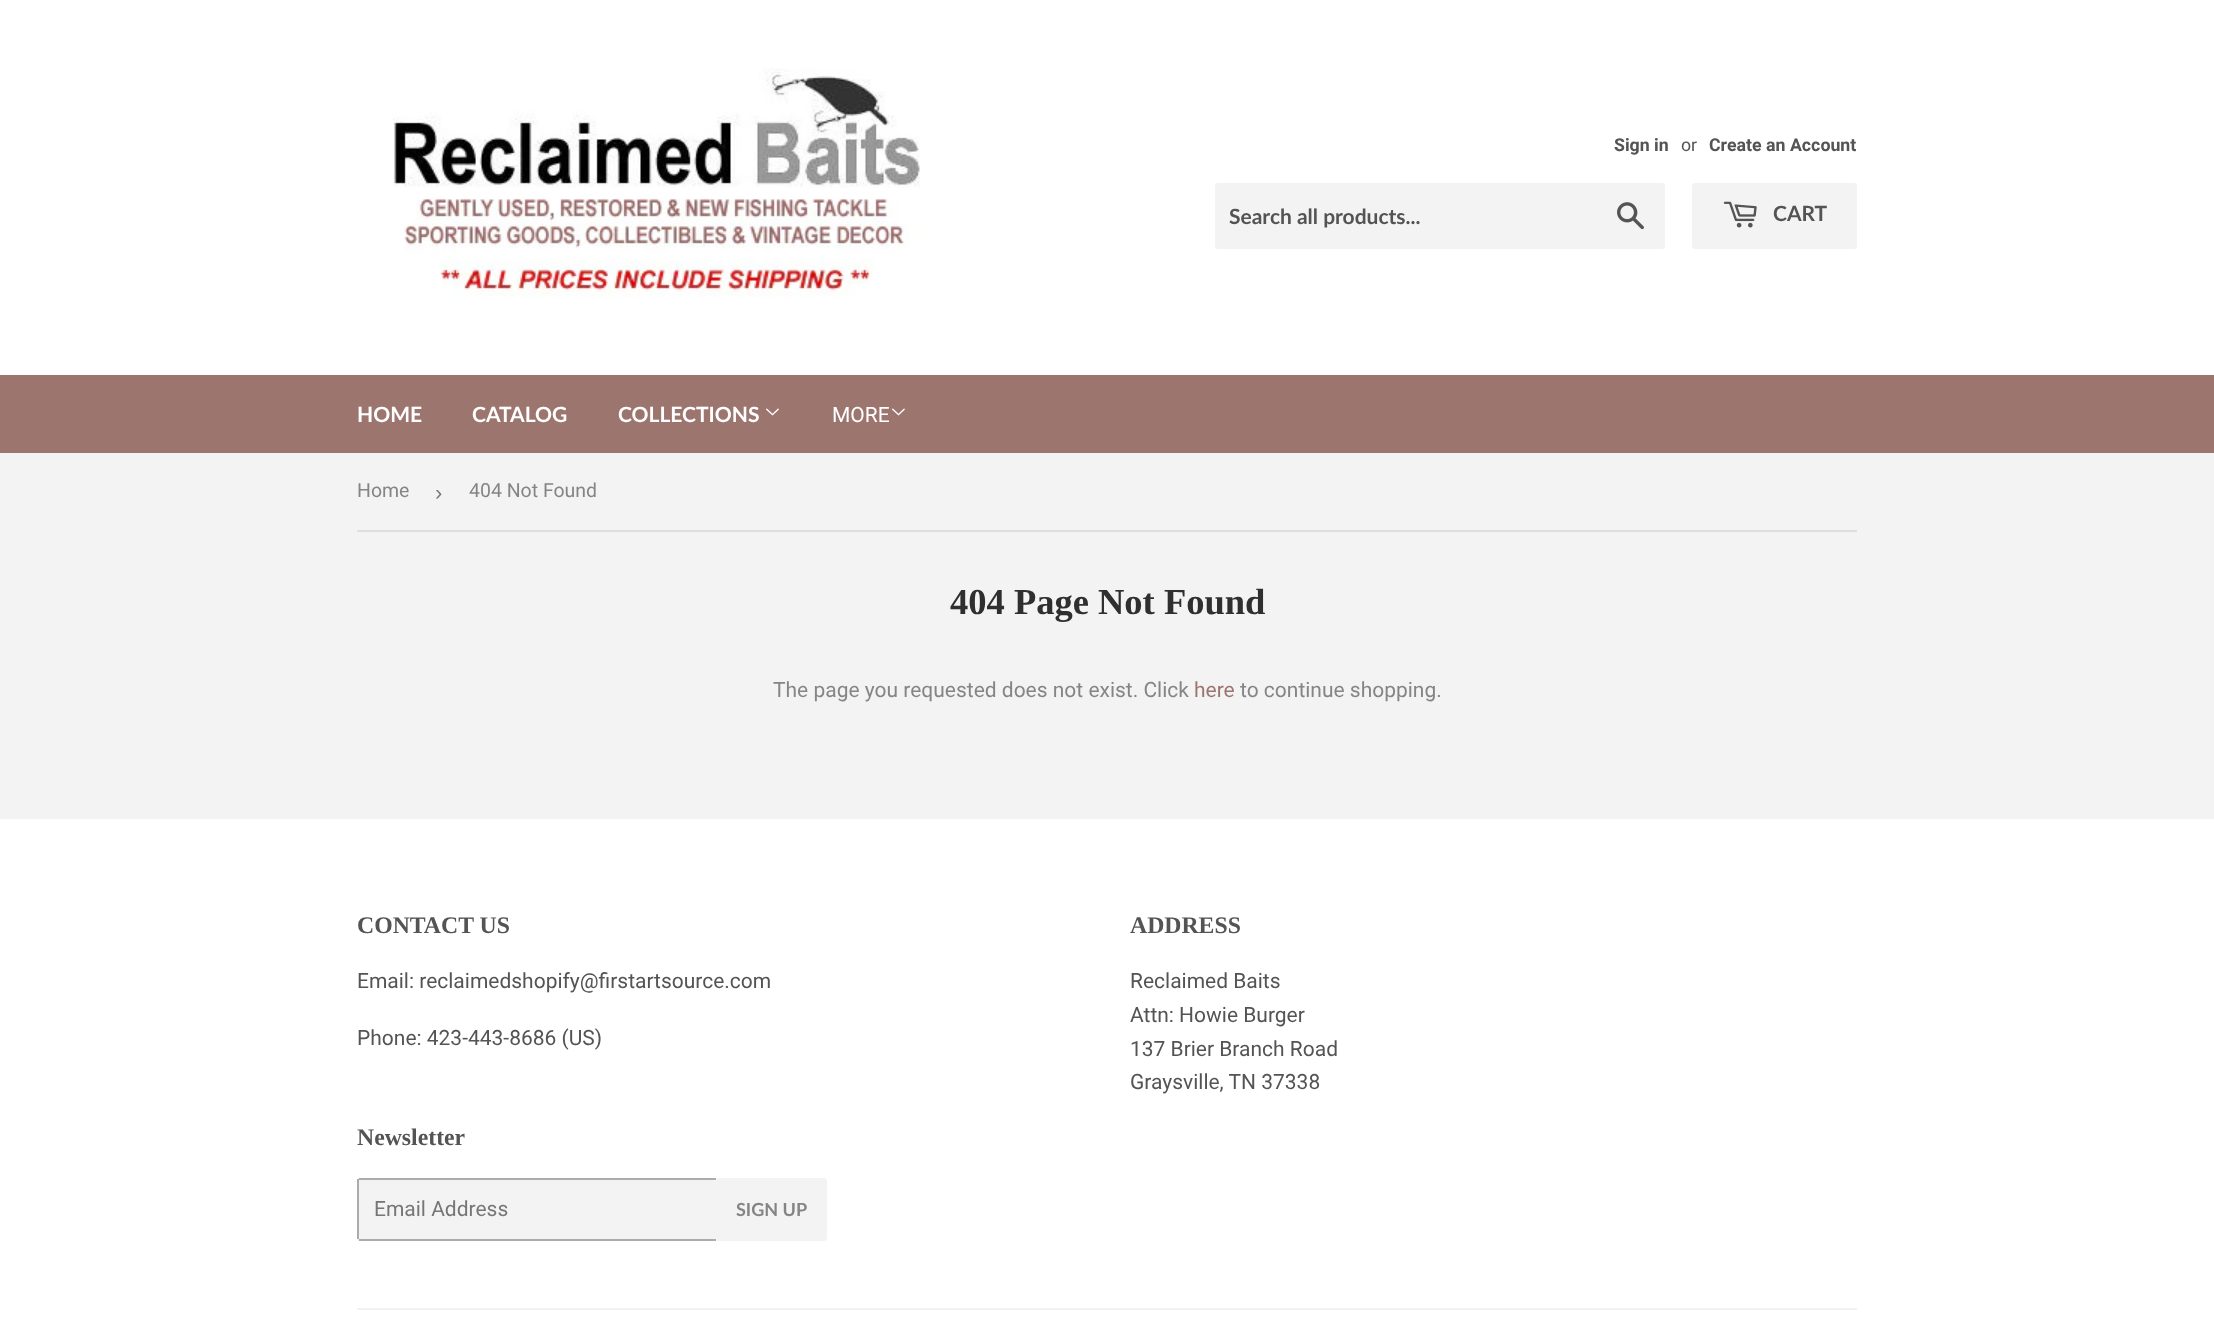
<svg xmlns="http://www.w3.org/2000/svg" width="2214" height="1335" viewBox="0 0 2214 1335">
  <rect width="100%" height="100%" fill="#f3f3f3"/>
  <rect x="0" y="0" width="2214" height="375" fill="#ffffff"/>
  <image x="393" y="68" width="527" height="229" href="img1.png"/>
  <text x="1614" y="151" font-family="Roboto" font-size="17.75" font-weight="bold" fill="#545454">Sign in</text>
  <text x="1681" y="151" font-family="Roboto" font-size="17.75" fill="#545454">or</text>
  <text x="1709" y="151" font-family="Roboto" font-size="17.75" font-weight="bold" fill="#545454">Create an Account</text>
  <rect x="1215" y="183" width="450" height="66" rx="3" fill="#f3f3f3"/>
  <text x="1229" y="224" font-family="Lato" font-size="21" font-weight="bold" fill="#545454">Search all products...</text>
  <image x="1617" y="202" width="27" height="28" href="img2.png"/>
  <rect x="1692" y="183" width="165" height="66" rx="3" fill="#f3f3f3"/>
  <image x="1723" y="201" width="34" height="27" href="img3.png"/>
  <text x="1773" y="221" font-family="Lato" font-size="21" font-weight="bold" fill="#545454">CART</text>
  <rect x="0" y="375" width="2214" height="78" fill="#9c756f"/>
  <text x="357" y="422" font-family="Lato" font-size="21" font-weight="bold" fill="#ffffff">HOME</text>
  <text x="472" y="422" font-family="Lato" font-size="21" font-weight="bold" fill="#ffffff">CATALOG</text>
  <text x="618" y="422" font-family="Lato" font-size="21" font-weight="bold" fill="#ffffff">COLLECTIONS</text>
  <image x="766" y="408" width="13" height="8" href="img4.png"/>
  <text x="832" y="422" font-family="Roboto" font-size="21" fill="#ffffff">MORE</text>
  <image x="892" y="408" width="13" height="8" href="img4.png"/>
  <rect x="357" y="530" width="1500" height="2" fill="#dedede"/>
  <text x="357" y="497" font-family="Roboto" font-size="19.5" fill="#858585">Home</text>
  <text x="435" y="500" font-family="Liberation Sans" font-size="22" fill="#767676">›</text>
  <text x="469" y="497" font-family="Roboto" font-size="19.5" fill="#858585">404 Not Found</text>
  <text x="950" y="614" font-family="Liberation Serif" font-size="36.5" font-weight="bold" fill="#2f2f2f">404 Page Not Found</text>
  <text x="773" y="697" font-family="Roboto" font-size="21" fill="#858585">The page you requested does not exist. Click</text>
  <text x="1194" y="697" font-family="Roboto" font-size="21" fill="#9c756f">here</text>
  <text x="1240" y="697" font-family="Roboto" font-size="21" fill="#858585">to continue shopping.</text>
  <rect x="0" y="819" width="2214" height="516" fill="#ffffff"/>
  <text x="357" y="933" font-family="Liberation Serif" font-size="23.75" font-weight="bold" fill="#545454">CONTACT US</text>
  <text x="357" y="988" font-family="Roboto" font-size="21" fill="#545454">Email: reclaimedshopify@firstartsource.com</text>
  <text x="357" y="1045" font-family="Roboto" font-size="21" fill="#545454">Phone: 423-443-8686 (US)</text>
  <text x="1130" y="933" font-family="Liberation Serif" font-size="23.75" font-weight="bold" fill="#545454">ADDRESS</text>
  <text x="1130" y="988" font-family="Roboto" font-size="21" fill="#545454">Reclaimed Baits</text>
  <text x="1130" y="1022" font-family="Roboto" font-size="21" fill="#545454">Attn: Howie Burger</text>
  <text x="1130" y="1056" font-family="Roboto" font-size="21" fill="#545454">137 Brier Branch Road</text>
  <text x="1130" y="1089" font-family="Roboto" font-size="21" fill="#545454">Graysville, TN 37338</text>
  <text x="357" y="1145" font-family="Liberation Serif" font-size="23.75" font-weight="bold" fill="#545454">Newsletter</text>
  <rect x="357" y="1178" width="360" height="63" rx="3" fill="#f3f3f3"/>
  <rect x="359" y="1178" width="357" height="2" fill="#ababab"/>
  <rect x="359" y="1239" width="357" height="2" fill="#ababab"/>
  <rect x="357" y="1179" width="2" height="60" fill="#ababab"/>
  <text x="374" y="1216" font-family="Roboto" font-size="21" fill="#767676">Email Address</text>
  <path d="M717 1178H824C825.5 1178 827 1179.5 827 1181V1238C827 1239.5 825.5 1241 824 1241H717Z" fill="#f3f3f3"/>
  <text x="736" y="1216" font-family="Lato" font-size="18" font-weight="bold" fill="#858585">SIGN UP</text>
  <rect x="357" y="1308" width="1500" height="2" fill="#f2f2f2"/>
</svg>
